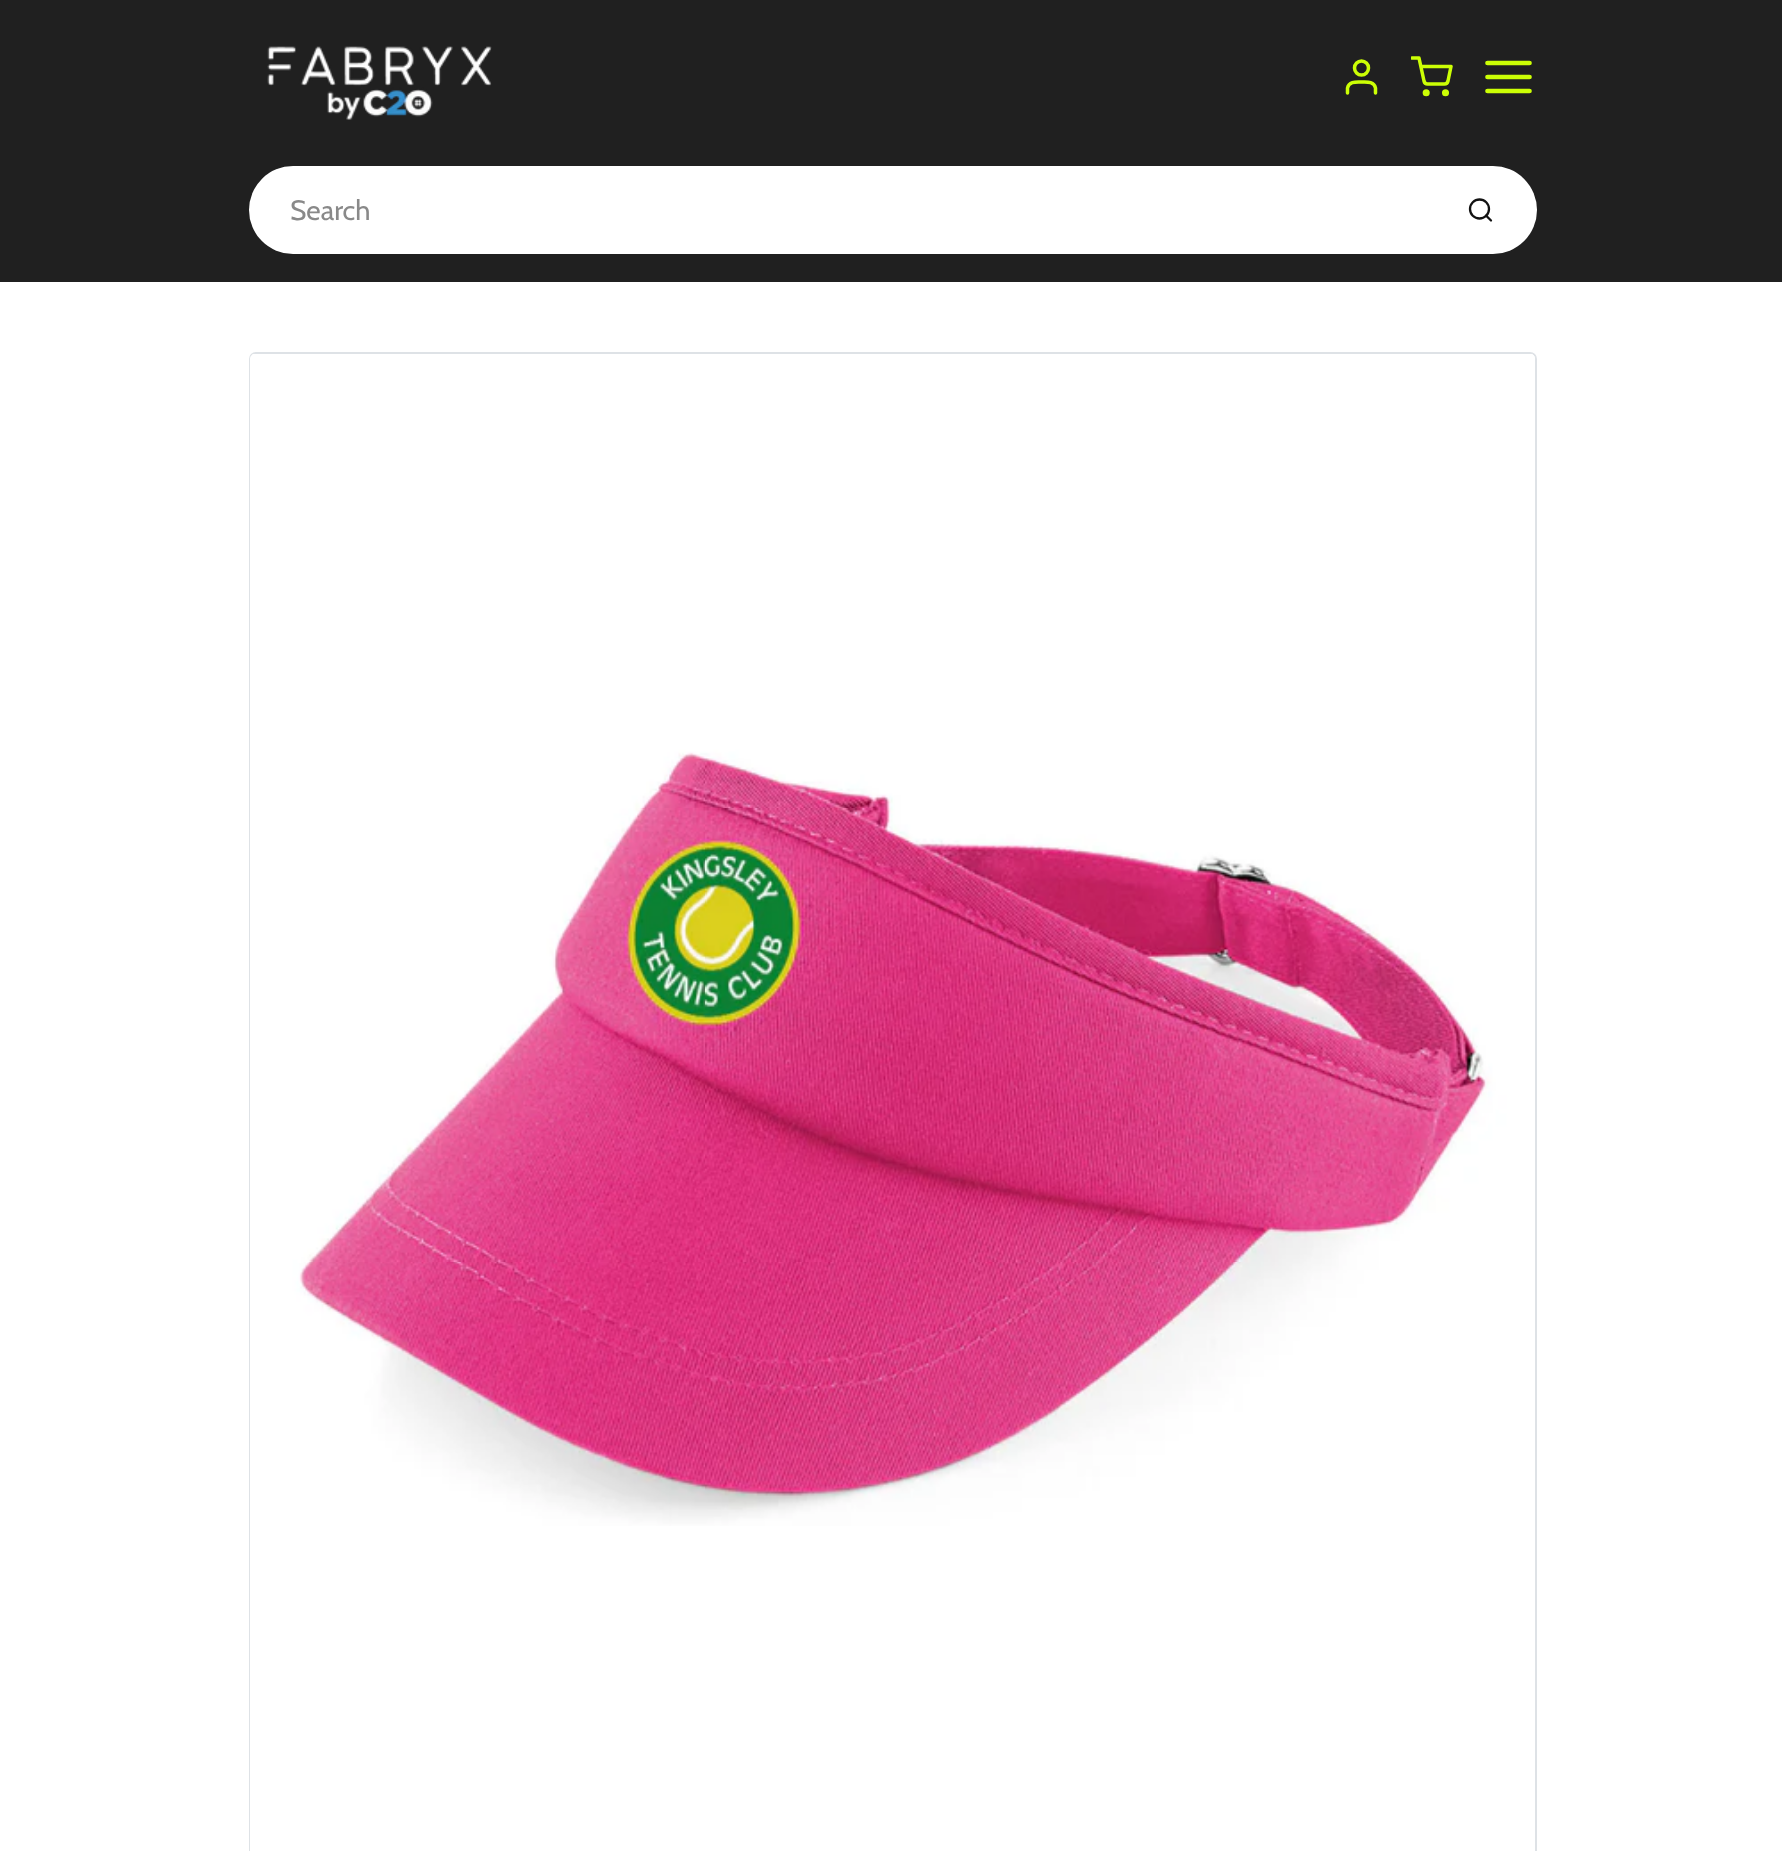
<svg xmlns="http://www.w3.org/2000/svg" width="1782" height="1851" viewBox="0 0 1782 1851">
  <defs>
    <clipPath id="clip1"><rect x="1411" y="56" width="42" height="42"/></clipPath>
  </defs>
  <rect width="100%" height="100%" fill="#202020"/>
  <image x="267" y="46" width="225" height="74" href="img1.png"/>
  <path d="M1375.5 93V88C1374 81 1366.5 82 1361.5 82C1356.5 82 1349 81 1347.5 88V93" fill="none" stroke="#ccff05" stroke-width="3.5" stroke-linecap="round" stroke-linejoin="round"/>
  <circle cx="1361.5" cy="68" r="7" fill="none" stroke="#ccff05" stroke-width="3.5"/>
  <circle cx="1426.2" cy="92.8" r="1.8" fill="none" stroke="#ccff05" stroke-width="3.5"/>
  <circle cx="1445.5" cy="92.8" r="1.8" fill="none" stroke="#ccff05" stroke-width="3.5"/>
  <g clip-path="url(#clip1)">
    <path d="M1412 58H1419L1424 81C1424.5 83 1425.5 84 1427.5 84H1444.5C1446 84 1447.5 83 1448 81L1451 66.5H1421" fill="none" stroke="#ccff05" stroke-width="3.5" stroke-linecap="round" stroke-linejoin="round"/>
  </g>
  <path d="M1487.5 77H1529.5M1487.5 63H1529.5M1487.5 91H1529.5" fill="none" stroke="#ccff05" stroke-width="4.7" stroke-linecap="round" stroke-linejoin="round"/>
  <rect x="249" y="166" width="1288" height="88" rx="44" fill="#ffffff"/>
  <text x="290" y="220" font-family="Cabin" font-size="28" fill="#898989">Search</text>
  <circle cx="1479.5" cy="209" r="9.5" fill="none" stroke="#121212" stroke-width="2.3"/>
  <path d="M1491 220.5L1486 215.5" fill="none" stroke="#121212" stroke-width="2.3" stroke-linecap="round" stroke-linejoin="round"/>
  <rect x="0" y="282" width="1782" height="1569" fill="#ffffff"/>
  <path d="M256 353H1530C1533.5 353 1536 355.5 1536 359V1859H250V359C250 355.5 252.5 353 256 353Z" fill="none" stroke="#dee2e6" stroke-width="2"/>
  <path d="M255 354H1530C1533 354 1535 356 1535 359V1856H250V359C250 356 252 354 255 354Z" fill="#ffffff"/>
  <image x="252" y="354" width="1281" height="1172" href="img2.png"/>
</svg>
